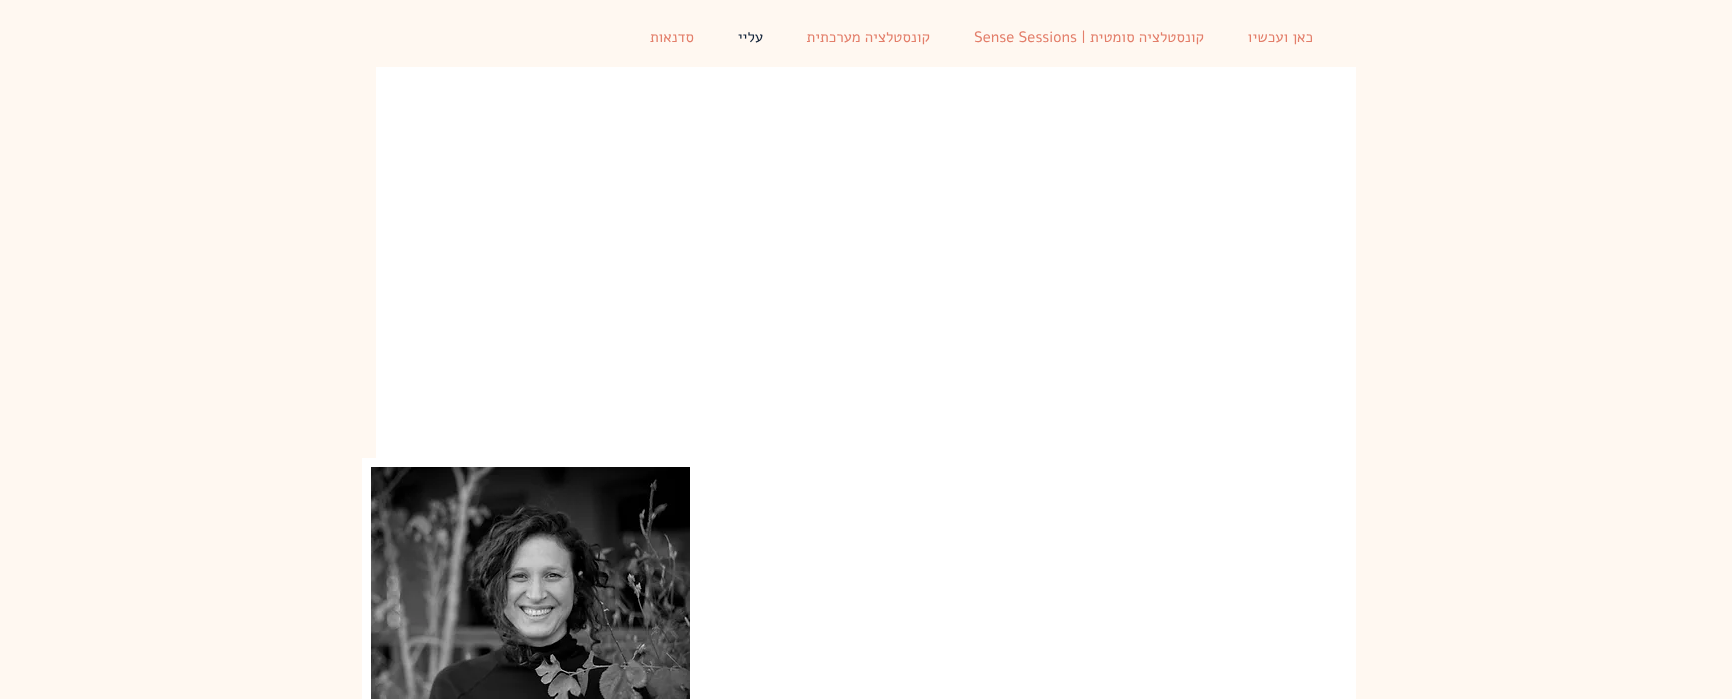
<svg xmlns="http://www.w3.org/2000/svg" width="1732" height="699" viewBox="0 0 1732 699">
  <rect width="100%" height="100%" fill="#fff8f1"/>
  <text x="1313" y="42" font-family="Alef" font-size="15" direction="rtl" fill="#e37e6a">כאן ועכשיו</text>
  <text x="1204" y="42" font-family="Alef" font-size="15" direction="rtl" fill="#e37e6a">קונסטלציה סומטית</text>
  <text x="974" y="42" font-family="Alef" font-size="15" fill="#e37e6a">Sense Sessions |</text>
  <text x="930" y="42" font-family="Alef" font-size="15" direction="rtl" fill="#e37e6a">קונסטלציה מערכתית</text>
  <text x="763" y="42" font-family="Alef" font-size="15" direction="rtl" fill="#122339">עליי</text>
  <text x="694" y="42" font-family="Alef" font-size="15" direction="rtl" fill="#e37e6a">סדנאות</text>
  <rect x="376" y="67" width="980" height="632" fill="#ffffff"/>
  <rect x="362" y="458" width="14" height="241" fill="#ffffff"/>
  <image x="371" y="467" width="319" height="232" href="img1.png"/>
</svg>
